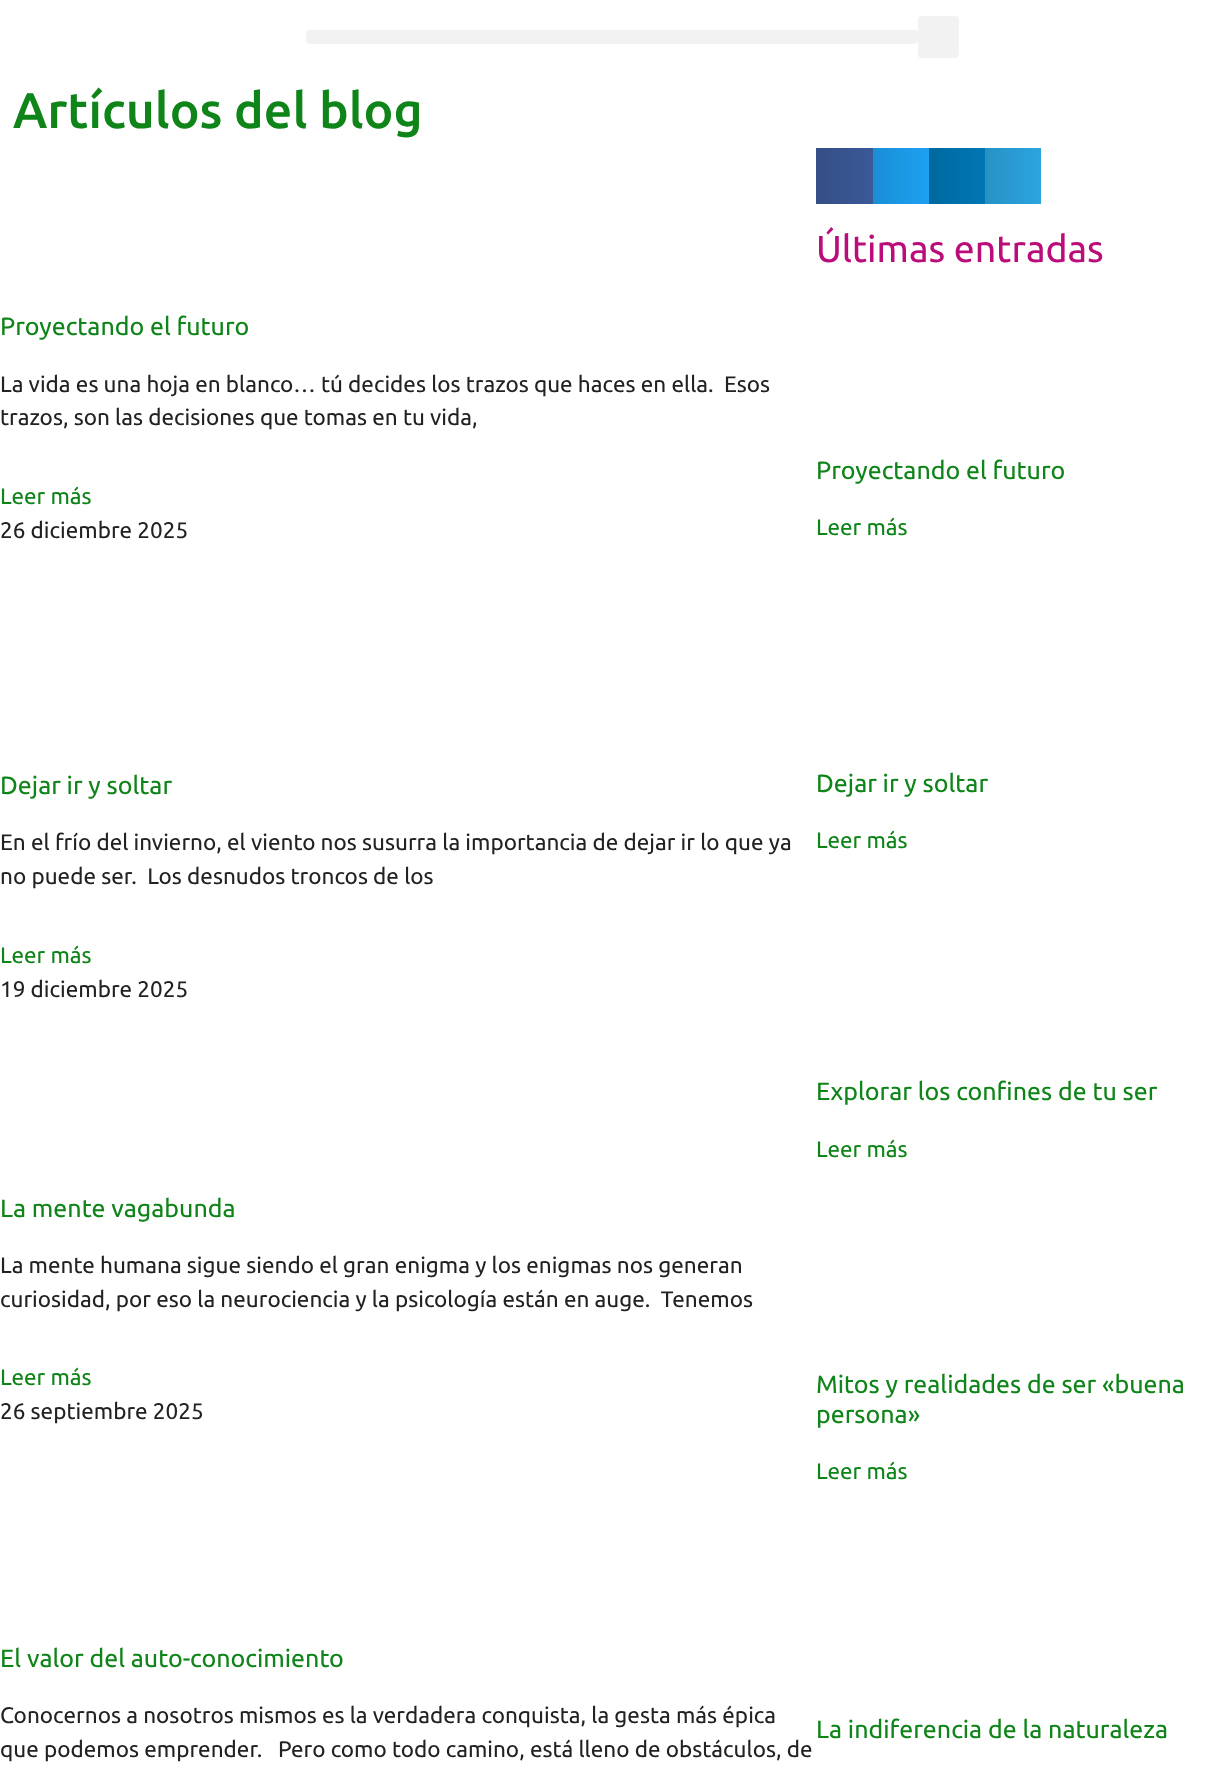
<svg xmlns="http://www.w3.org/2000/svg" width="1223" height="1776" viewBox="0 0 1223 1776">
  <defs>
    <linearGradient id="g1" gradientUnits="userSpaceOnUse" x1="816" y1="176" x2="873" y2="176"><stop offset="0" stop-color="#344e86"/><stop offset="1" stop-color="#3b5998"/></linearGradient>
    <linearGradient id="g2" gradientUnits="userSpaceOnUse" x1="873" y1="176" x2="929" y2="176"><stop offset="0" stop-color="#1a8ed5"/><stop offset="1" stop-color="#1da1f2"/></linearGradient>
    <linearGradient id="g3" gradientUnits="userSpaceOnUse" x1="929" y1="176" x2="985" y2="176"><stop offset="0" stop-color="#00699f"/><stop offset="1" stop-color="#0077b5"/></linearGradient>
    <linearGradient id="g4" gradientUnits="userSpaceOnUse" x1="985" y1="176" x2="1041" y2="176"><stop offset="0" stop-color="#2791c5"/><stop offset="1" stop-color="#2ca5e0"/></linearGradient>
  </defs>
  <rect width="100%" height="100%" fill="#ffffff"/>
  <rect x="306" y="30" width="612" height="14" rx="4" fill="#f2f2f2"/>
  <rect x="918" y="16" width="41" height="42" rx="4" fill="#f2f2f2"/>
  <text x="13" y="128" font-family="Ubuntu" font-size="50" font-weight="500" fill="#0f8419">Artículos del blog</text>
  <text x="0" y="335" font-family="Ubuntu" font-size="25" fill="#0f8419">Proyectando el futuro</text>
  <text x="0" y="392" font-family="Ubuntu" font-size="22.5" fill="#222222" xml:space="preserve">La vida es una hoja en blanco… tú decides los trazos que haces en ella.  Esos</text>
  <text x="0" y="425" font-family="Ubuntu" font-size="22.5" fill="#222222">trazos, son las decisiones que tomas en tu vida,</text>
  <text x="0" y="504" font-family="Ubuntu" font-size="22.5" fill="#0f8419">Leer más</text>
  <text x="0" y="538" font-family="Ubuntu" font-size="22.5" fill="#222222">26 diciembre 2025</text>
  <text x="0" y="794" font-family="Ubuntu" font-size="25" fill="#0f8419">Dejar ir y soltar</text>
  <text x="0" y="850" font-family="Ubuntu" font-size="22.5" fill="#222222">En el frío del invierno, el viento nos susurra la importancia de dejar ir lo que ya</text>
  <text x="0" y="884" font-family="Ubuntu" font-size="22.5" fill="#222222" xml:space="preserve">no puede ser.  Los desnudos troncos de los</text>
  <text x="0" y="963" font-family="Ubuntu" font-size="22.5" fill="#0f8419">Leer más</text>
  <text x="0" y="997" font-family="Ubuntu" font-size="22.5" fill="#222222">19 diciembre 2025</text>
  <text x="0" y="1217" font-family="Ubuntu" font-size="25" fill="#0f8419">La mente vagabunda</text>
  <text x="0" y="1273" font-family="Ubuntu" font-size="22.5" fill="#222222">La mente humana sigue siendo el gran enigma y los enigmas nos generan</text>
  <text x="0" y="1307" font-family="Ubuntu" font-size="22.5" fill="#222222" xml:space="preserve">curiosidad, por eso la neurociencia y la psicología están en auge.  Tenemos</text>
  <text x="0" y="1385" font-family="Ubuntu" font-size="22.5" fill="#0f8419">Leer más</text>
  <text x="0" y="1419" font-family="Ubuntu" font-size="22.5" fill="#222222">26 septiembre 2025</text>
  <text x="0" y="1667" font-family="Ubuntu" font-size="25" fill="#0f8419">El valor del auto-conocimiento</text>
  <text x="0" y="1723" font-family="Ubuntu" font-size="22.5" fill="#222222">Conocernos a nosotros mismos es la verdadera conquista, la gesta más épica</text>
  <text x="0" y="1757" font-family="Ubuntu" font-size="22.5" fill="#222222" xml:space="preserve">que podemos emprender.   Pero como todo camino, está lleno de obstáculos, de</text>
  <rect x="816" y="148" width="57" height="56" fill="url(#g1)"/>
  <rect x="873" y="148" width="56" height="56" fill="url(#g2)"/>
  <rect x="929" y="148" width="56" height="56" fill="url(#g3)"/>
  <rect x="985" y="148" width="56" height="56" fill="url(#g4)"/>
  <text x="816" y="262" font-family="Ubuntu" font-size="37.5" fill="#ba0d7a">Últimas entradas</text>
  <text x="816" y="479" font-family="Ubuntu" font-size="25" fill="#0f8419">Proyectando el futuro</text>
  <text x="816" y="535" font-family="Ubuntu" font-size="22.5" fill="#0f8419">Leer más</text>
  <text x="816" y="792" font-family="Ubuntu" font-size="25" fill="#0f8419">Dejar ir y soltar</text>
  <text x="816" y="848" font-family="Ubuntu" font-size="22.5" fill="#0f8419">Leer más</text>
  <text x="816" y="1100" font-family="Ubuntu" font-size="25" fill="#0f8419">Explorar los confines de tu ser</text>
  <text x="816" y="1157" font-family="Ubuntu" font-size="22.5" fill="#0f8419">Leer más</text>
  <text x="816" y="1393" font-family="Ubuntu" font-size="25" fill="#0f8419">Mitos y realidades de ser «buena</text>
  <text x="816" y="1423" font-family="Ubuntu" font-size="25" fill="#0f8419">persona»</text>
  <text x="816" y="1479" font-family="Ubuntu" font-size="22.5" fill="#0f8419">Leer más</text>
  <text x="816" y="1738" font-family="Ubuntu" font-size="25" fill="#0f8419">La indiferencia de la naturaleza</text>
</svg>
